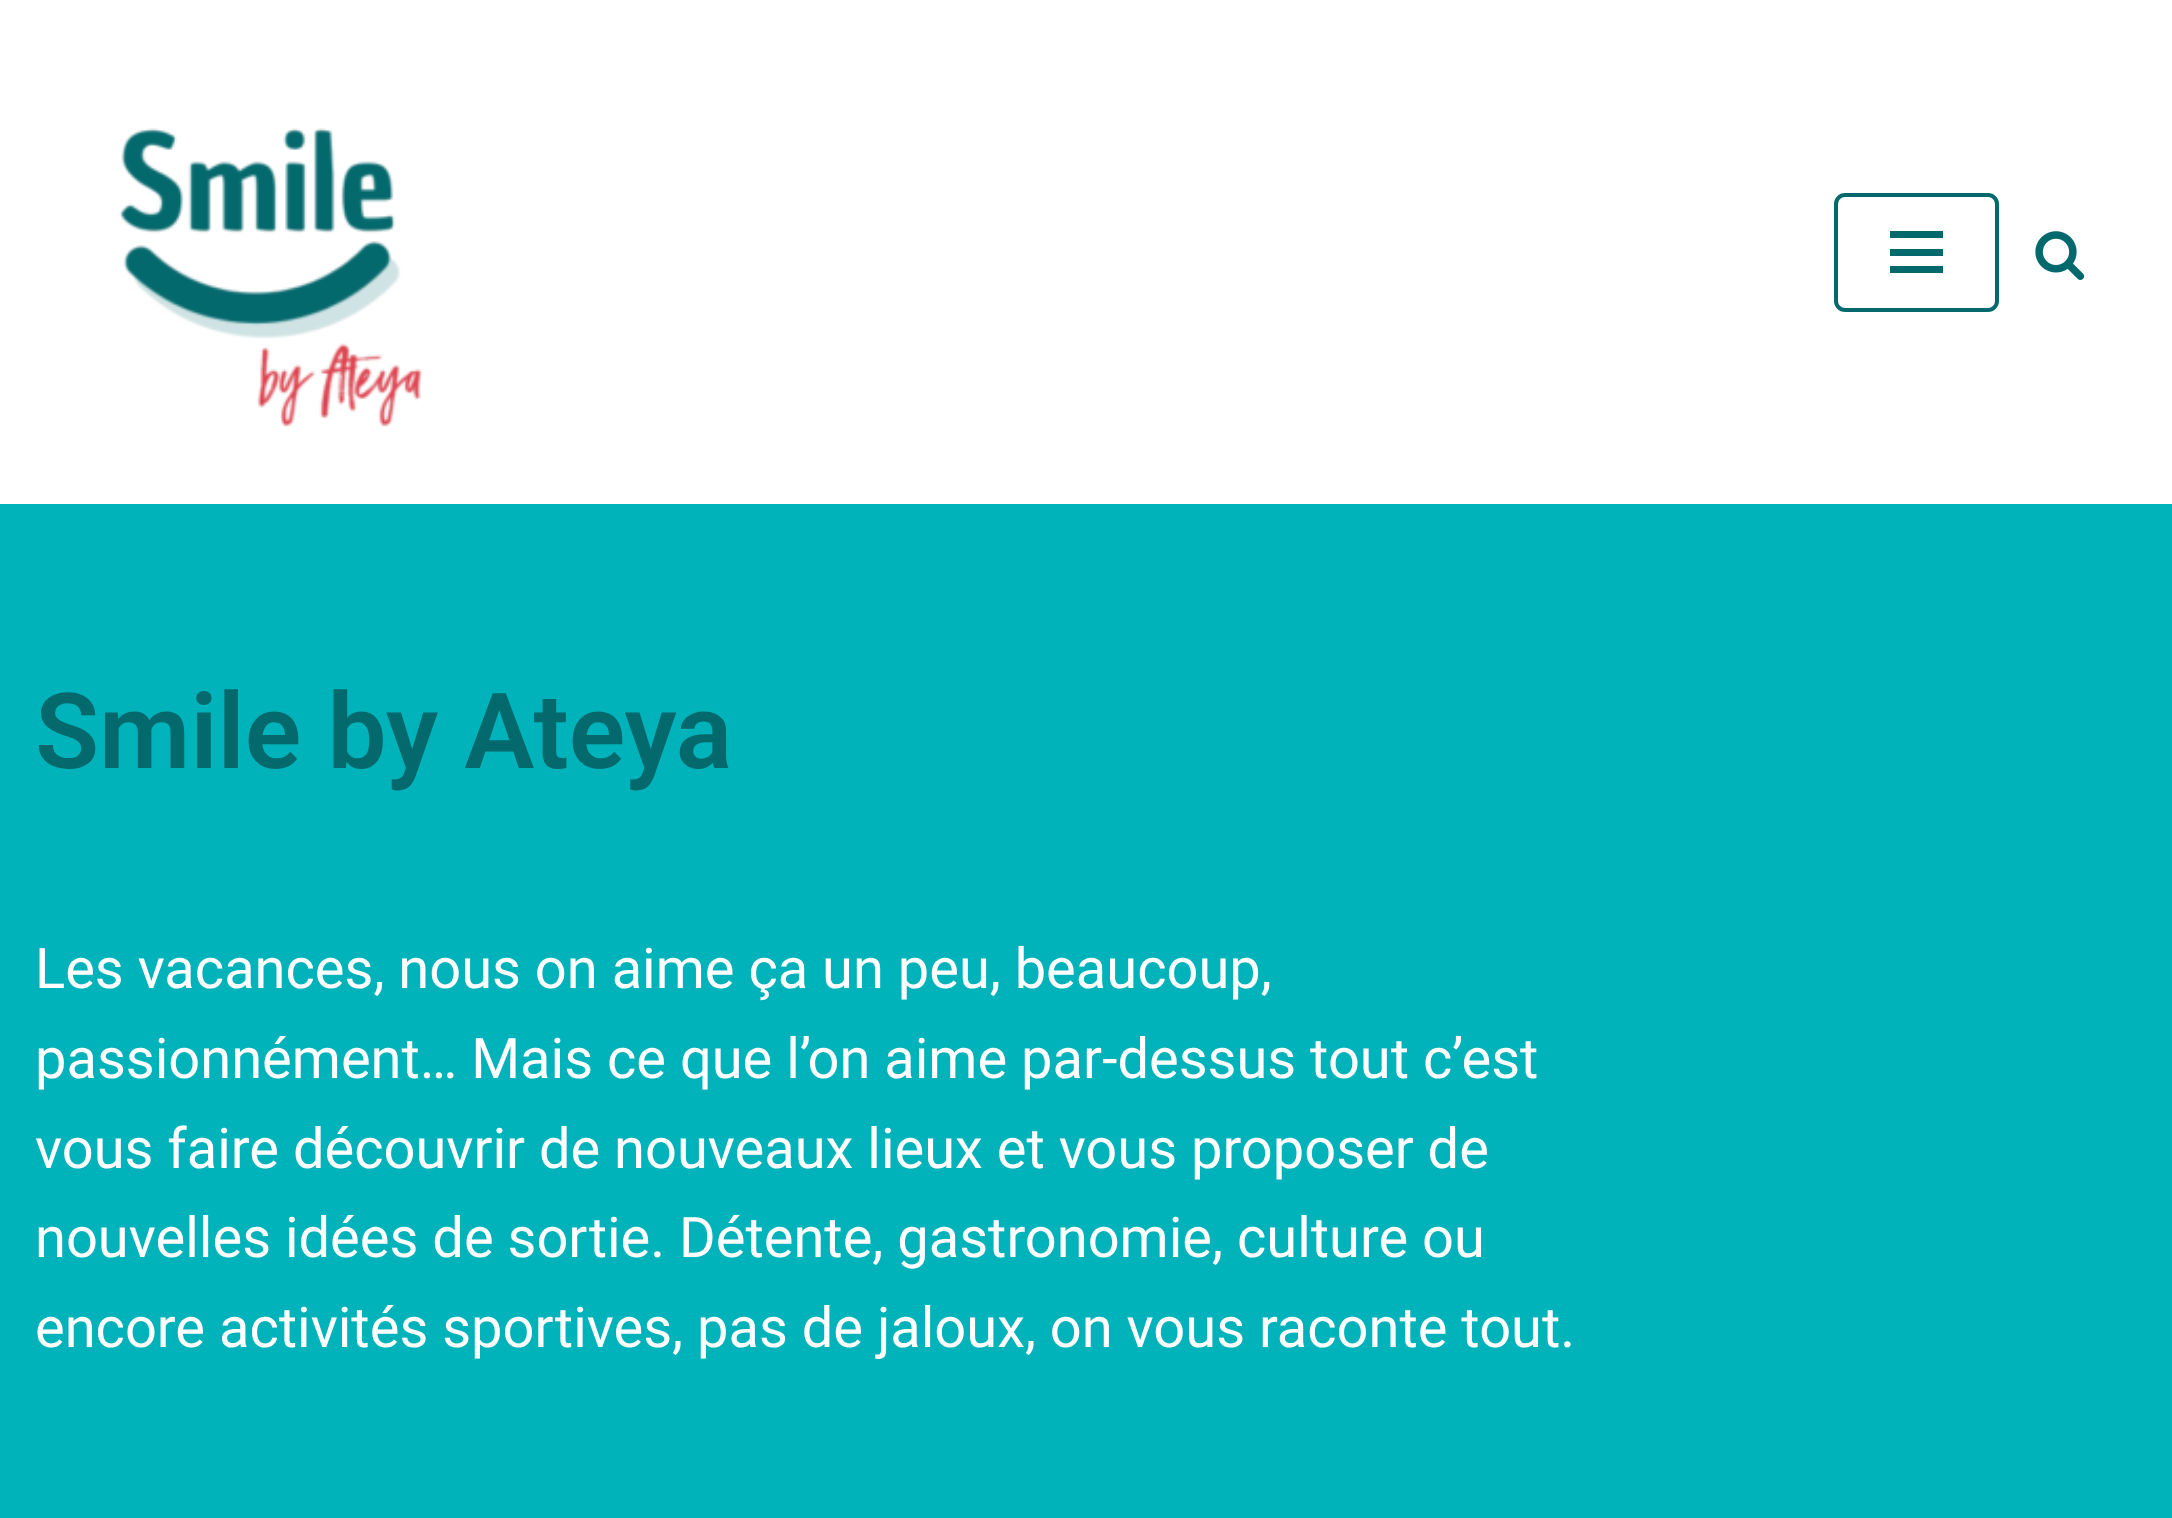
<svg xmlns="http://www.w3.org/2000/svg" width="2172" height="1518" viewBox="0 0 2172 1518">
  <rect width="100%" height="100%" fill="#ffffff"/>
  <image x="119" y="128" width="304" height="299" href="img1.png"/>
  <rect x="1836" y="195" width="161" height="115" rx="9" fill="none" stroke="#04696d" stroke-width="4"/>
  <rect x="1890" y="231" width="53" height="7" fill="#04696d"/>
  <rect x="1890" y="249" width="53" height="7" fill="#04696d"/>
  <rect x="1890" y="266" width="53" height="7" fill="#04696d"/>
  <image x="2035" y="231" width="50" height="49" href="img2.png"/>
  <rect x="0" y="504" width="2172" height="1014" fill="#00b2b9"/>
  <text x="35" y="768" font-family="Roboto" font-size="105" font-weight="600" fill="#04696d">Smile by Ateya</text>
  <text x="35" y="988" font-family="Roboto" font-size="56" fill="#ffffff">Les vacances, nous on aime ça un peu, beaucoup,</text>
  <text x="35" y="1078" font-family="Roboto" font-size="56" fill="#ffffff">passionnément… Mais ce que l’on aime par-dessus tout c’est</text>
  <text x="35" y="1168" font-family="Roboto" font-size="56" fill="#ffffff">vous faire découvrir de nouveaux lieux et vous proposer de</text>
  <text x="35" y="1257" font-family="Roboto" font-size="56" fill="#ffffff">nouvelles idées de sortie. Détente, gastronomie, culture ou</text>
  <text x="35" y="1347" font-family="Roboto" font-size="56" fill="#ffffff">encore activités sportives, pas de jaloux, on vous raconte tout.</text>
</svg>
